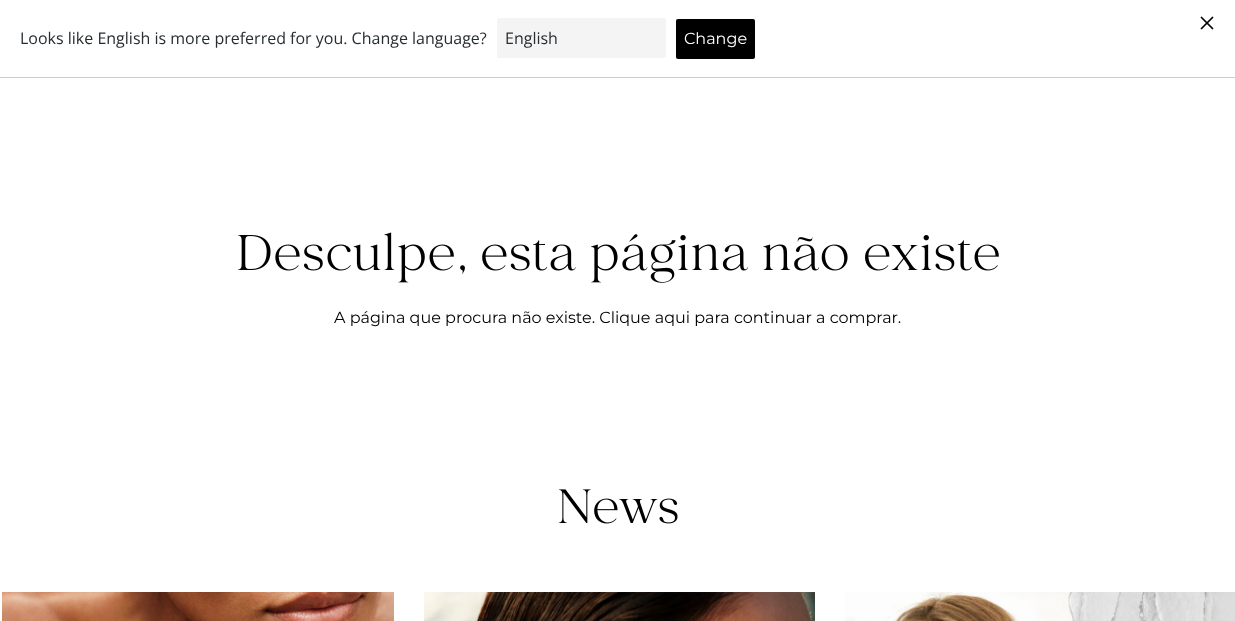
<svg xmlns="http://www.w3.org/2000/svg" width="1235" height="621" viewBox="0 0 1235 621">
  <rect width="100%" height="100%" fill="#ffffff"/>
  <rect x="0" y="77" width="1235" height="1" fill="#cccccc"/>
  <image x="1200" y="16" width="14" height="14" href="img1.png"/>
  <text x="20" y="44" font-family="Open Sans" font-size="16" fill="#272e31">Looks like English is more preferred for you. Change language?</text>
  <rect x="497" y="18" width="169" height="40" rx="2" fill="#f4f4f4"/>
  <text x="505" y="44" font-family="Open Sans" font-size="16" fill="#272e31">English</text>
  <rect x="676" y="19" width="79" height="40" rx="2" fill="#000000"/>
  <text x="684" y="44" font-family="Montserrat" font-size="16" fill="#ffffff">Change</text>
  <image x="238" y="232" width="761" height="51" href="img2.png"/>
  <text x="334" y="323" font-family="Montserrat" font-size="16" fill="#000000">A página que procura não existe. Clique aqui para continuar a comprar.</text>
  <image x="558" y="489" width="120" height="35" href="img3.png"/>
  <image x="2" y="592" width="392" height="29" href="img4.png"/>
  <image x="424" y="592" width="391" height="29" href="img5.png"/>
  <image x="845" y="592" width="390" height="29" href="img6.png"/>
</svg>
